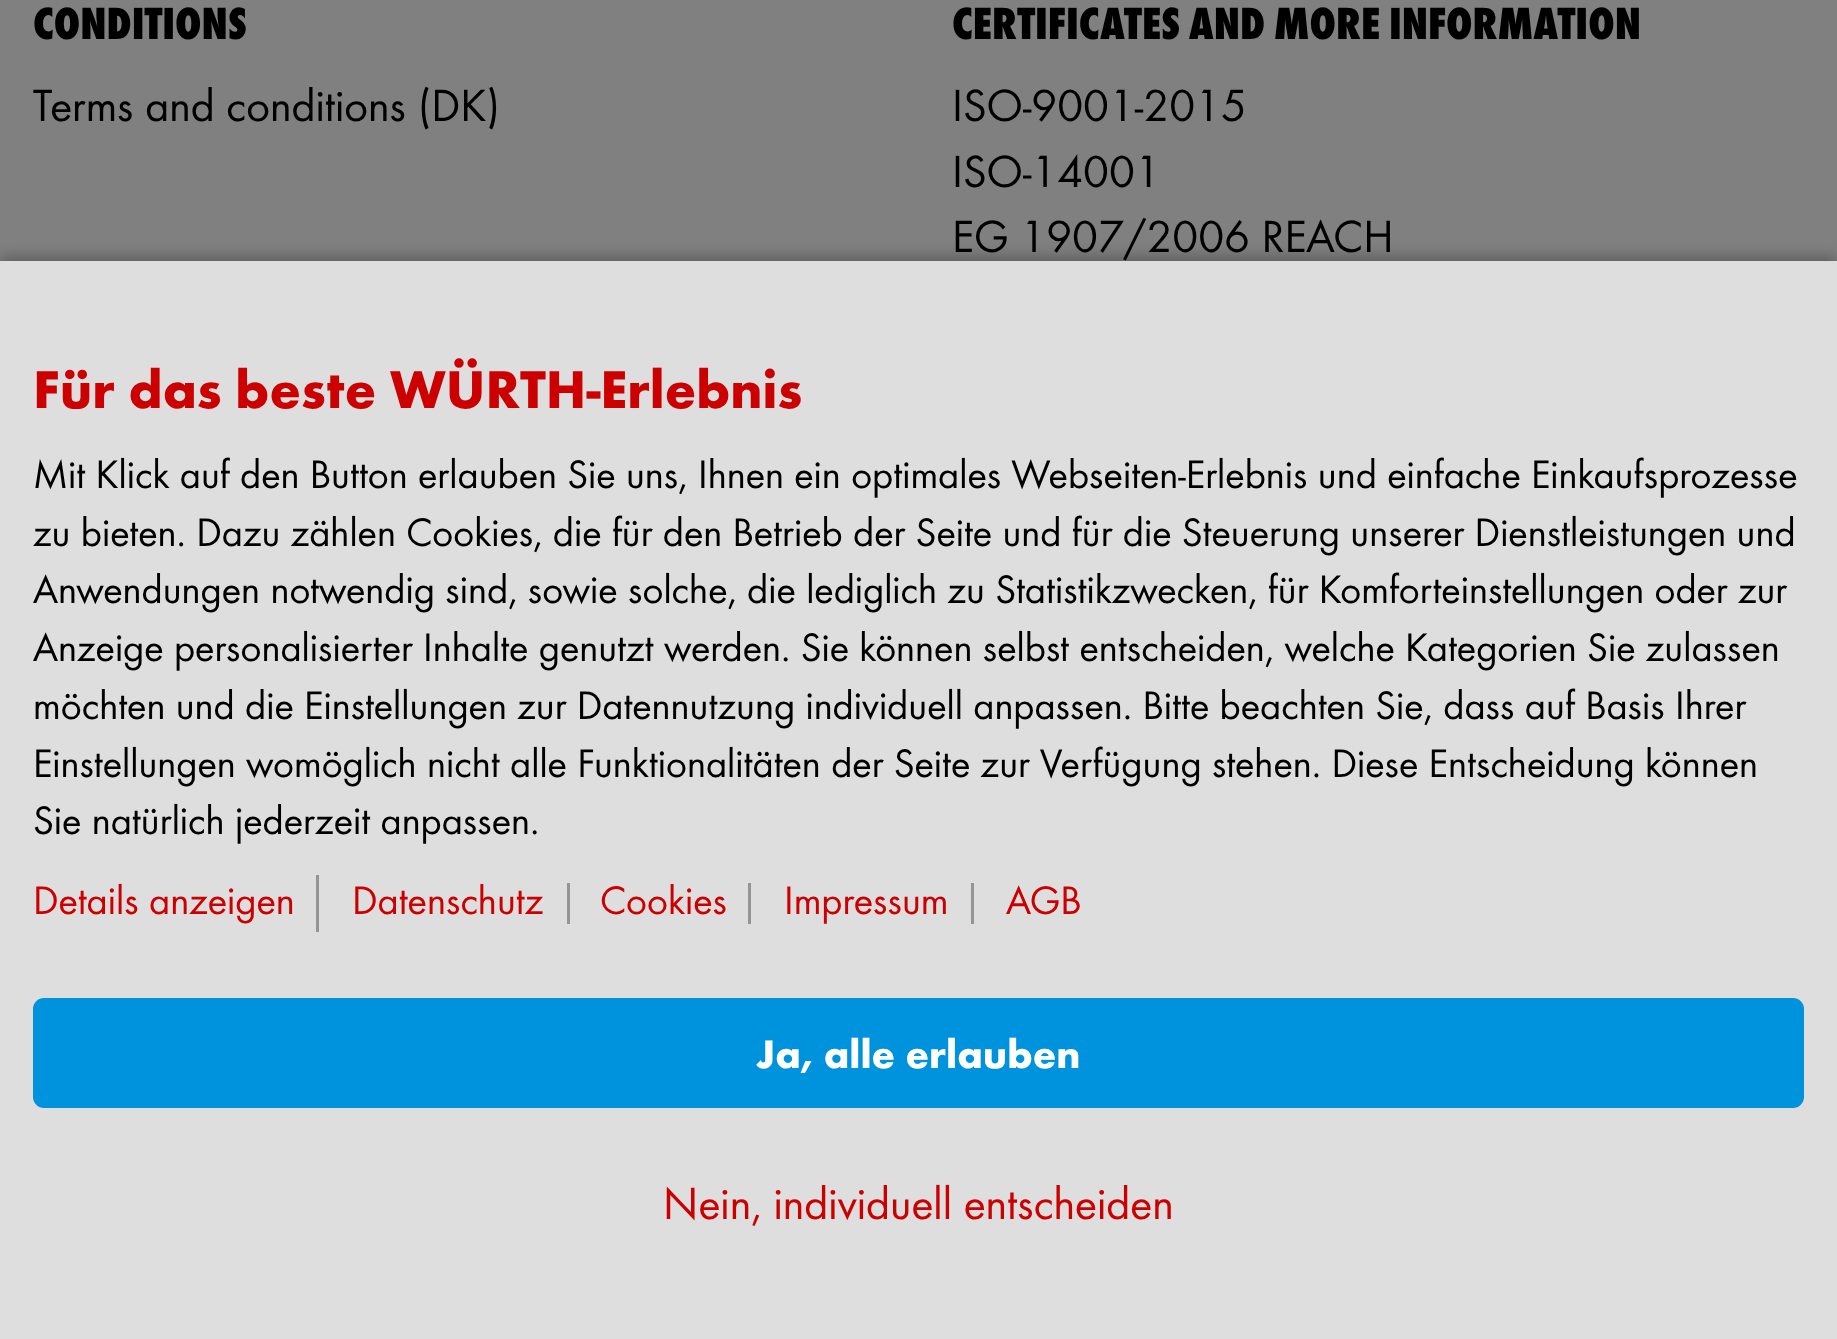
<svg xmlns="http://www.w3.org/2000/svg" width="1837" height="1339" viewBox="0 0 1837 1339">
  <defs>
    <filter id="blur1" x="-50%" y="-200%" width="200%" height="500%"><feGaussianBlur stdDeviation="7"/></filter>
  </defs>
  <rect width="100%" height="100%" fill="#808080"/>
  <text x="33" y="39" font-family="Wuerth" font-size="46.75" font-weight="800" fill="#000000">CONDITIONS</text>
  <text x="33" y="121" font-family="Wuerth" font-size="46.75" fill="#000000">Terms and conditions (DK)</text>
  <text x="952" y="39" font-family="Wuerth" font-size="46.75" font-weight="800" fill="#000000">CERTIFICATES AND MORE INFORMATION</text>
  <text x="952" y="121" font-family="Wuerth" font-size="46.75" fill="#000000">ISO-9001-2015</text>
  <text x="952" y="187" font-family="Wuerth" font-size="46.75" fill="#000000">ISO-14001</text>
  <text x="952" y="252" font-family="Wuerth" font-size="46.75" fill="#000000">EG 1907/2006 REACH</text>
  <rect x="0" y="256" width="1837" height="1078" fill="#000000" fill-opacity="0.26" filter="url(#blur1)"/>
  <rect x="0" y="261" width="1837" height="1078" fill="#dedede"/>
  <text x="33" y="408" font-family="Wuerth" font-size="55" font-weight="bold" fill="#cc0000">Für das beste WÜRTH-Erlebnis</text>
  <text x="33" y="488" font-family="Wuerth" font-size="41.25" fill="#000000">Mit Klick auf den Button erlauben Sie uns, Ihnen ein optimales Webseiten-Erlebnis und einfache Einkaufsprozesse</text>
  <text x="33" y="546" font-family="Wuerth" font-size="41.25" fill="#000000">zu bieten. Dazu zählen Cookies, die für den Betrieb der Seite und für die Steuerung unserer Dienstleistungen und</text>
  <text x="33" y="603" font-family="Wuerth" font-size="41.25" fill="#000000">Anwendungen notwendig sind, sowie solche, die lediglich zu Statistikzwecken, für Komforteinstellungen oder zur</text>
  <text x="33" y="661" font-family="Wuerth" font-size="41.25" fill="#000000">Anzeige personalisierter Inhalte genutzt werden. Sie können selbst entscheiden, welche Kategorien Sie zulassen</text>
  <text x="33" y="719" font-family="Wuerth" font-size="41.25" fill="#000000">möchten und die Einstellungen zur Datennutzung individuell anpassen. Bitte beachten Sie, dass auf Basis Ihrer</text>
  <text x="33" y="777" font-family="Wuerth" font-size="41.25" fill="#000000">Einstellungen womöglich nicht alle Funktionalitäten der Seite zur Verfügung stehen. Diese Entscheidung können</text>
  <text x="33" y="834" font-family="Wuerth" font-size="41.25" fill="#000000">Sie natürlich jederzeit anpassen.</text>
  <rect x="316" y="875" width="3" height="57" fill="#959595"/>
  <text x="33" y="914" font-family="Wuerth" font-size="41.25" fill="#cc0000">Details anzeigen</text>
  <text x="352" y="914" font-family="Wuerth" font-size="41.25" fill="#cc0000">Datenschutz</text>
  <rect x="567" y="883" width="3" height="41" fill="#959595"/>
  <text x="600" y="914" font-family="Wuerth" font-size="41.25" fill="#cc0000">Cookies</text>
  <rect x="748" y="883" width="3" height="41" fill="#959595"/>
  <text x="784" y="914" font-family="Wuerth" font-size="41.25" fill="#cc0000">Impressum</text>
  <rect x="971" y="883" width="3" height="41" fill="#959595"/>
  <text x="1006" y="914" font-family="Wuerth" font-size="41.25" fill="#cc0000">AGB</text>
  <rect x="33" y="998" width="1771" height="110" rx="11" fill="#0093dd"/>
  <text x="756" y="1068" font-family="Wuerth" font-size="41.25" font-weight="bold" fill="#ffffff">Ja, alle erlauben</text>
  <text x="663" y="1219" font-family="Wuerth" font-size="46.75" fill="#cc0000">Nein, individuell entscheiden</text>
</svg>
